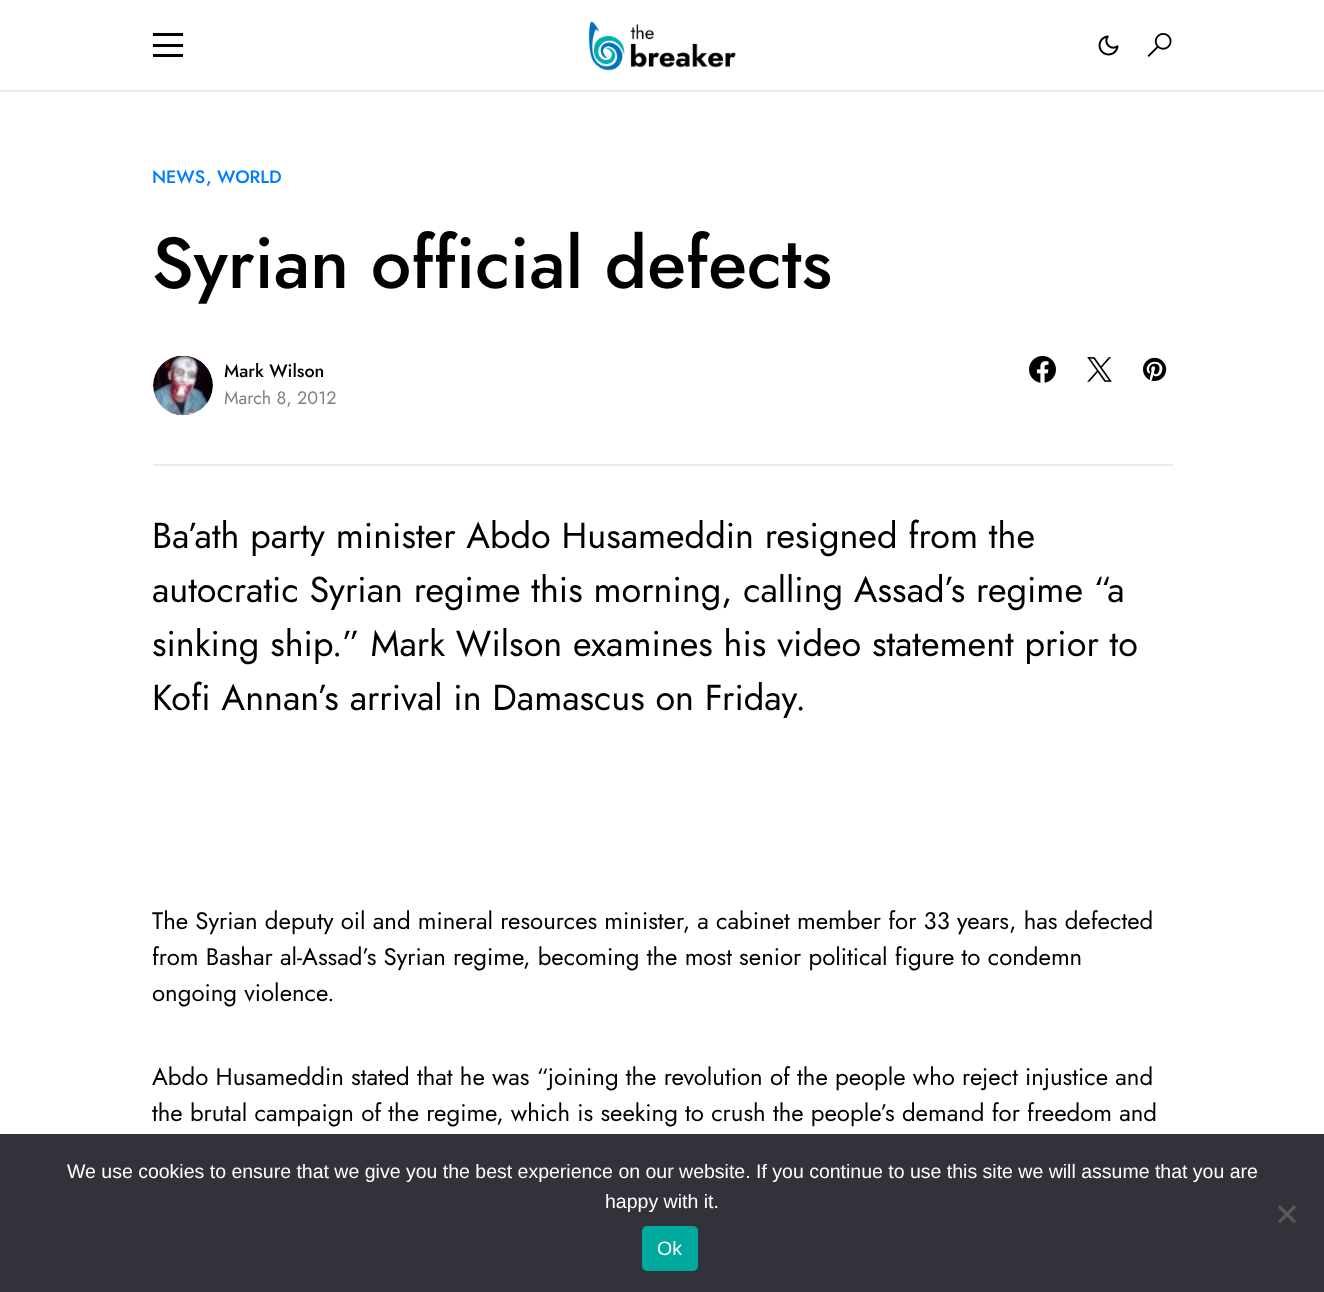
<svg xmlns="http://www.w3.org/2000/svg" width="1324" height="1292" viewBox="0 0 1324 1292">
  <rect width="100%" height="100%" fill="#ffffff"/>
  <rect x="0" y="90" width="1324" height="2" fill="#e9ecef"/>
  <rect x="153" y="33" width="30" height="3" fill="#000000"/>
  <rect x="153" y="44" width="30" height="3" fill="#000000"/>
  <rect x="153" y="54" width="30" height="3" fill="#000000"/>
  <image x="588" y="21" width="148" height="50" href="img1.png"/>
  <image x="1098" y="35" width="21" height="21" href="img2.png"/>
  <image x="1147" y="33" width="25" height="24" href="img3.png"/>
  <text x="152" y="183" font-family="Jost" font-size="18" font-weight="500" fill="#007aff">NEWS</text>
  <text x="206" y="183" font-family="Jost" font-size="18" font-weight="500" fill="#007aff">, WORLD</text>
  <text x="152" y="288" font-family="Jost" font-size="72" font-weight="500" fill="#000000">Syrian official defects</text>
  <image x="153" y="355" width="60" height="61" href="img4.png"/>
  <text x="224" y="377" font-family="Jost" font-size="18" font-weight="500" fill="#000000">Mark Wilson</text>
  <text x="224" y="404" font-family="Jost" font-size="18" fill="#818181">March 8, 2012</text>
  <image x="1029" y="355" width="27" height="28" href="img5.png"/>
  <image x="1087" y="357" width="25" height="25" href="img6.png"/>
  <image x="1143" y="357" width="24" height="24" href="img7.png"/>
  <rect x="153" y="464" width="1020" height="2" fill="#e9ecef"/>
  <text x="152" y="548" font-family="Jost" font-size="36" fill="#000000">Ba’ath party minister Abdo Husameddin resigned from the</text>
  <text x="152" y="602" font-family="Jost" font-size="36" fill="#000000">autocratic Syrian regime this morning, calling Assad’s regime “a</text>
  <text x="152" y="656" font-family="Jost" font-size="36" fill="#000000">sinking ship.” Mark Wilson examines his video statement prior to</text>
  <text x="152" y="710" font-family="Jost" font-size="36" fill="#000000">Kofi Annan’s arrival in Damascus on Friday.</text>
  <text x="152" y="929" font-family="Jost" font-size="24" fill="#000000">The Syrian deputy oil and mineral resources minister, a cabinet member for 33 years, has defected</text>
  <text x="152" y="965" font-family="Jost" font-size="24" fill="#000000">from Bashar al-Assad’s Syrian regime, becoming the most senior political figure to condemn</text>
  <text x="152" y="1001" font-family="Jost" font-size="24" fill="#000000">ongoing violence.</text>
  <text x="152" y="1085" font-family="Jost" font-size="24" fill="#000000">Abdo Husameddin stated that he was “joining the revolution of the people who reject injustice and</text>
  <text x="152" y="1121" font-family="Jost" font-size="24" fill="#000000">the brutal campaign of the regime, which is seeking to crush the people’s demand for freedom and</text>
  <rect x="0" y="1134" width="1324" height="158" fill="#32323a"/>
  <text x="67" y="1178" font-family="Liberation Sans" font-size="19.5" fill="#ffffff">We use cookies to ensure that we give you the best experience on our website. If you continue to use this site we will assume that you are</text>
  <text x="605" y="1208" font-family="Liberation Sans" font-size="19.5" fill="#ffffff">happy with it.</text>
  <path d="M1294 1205L1296 1207.5L1280 1223.5L1278 1221Z" fill="#59595d"/>
  <path d="M1278 1207.5L1280 1205L1296 1221L1294 1223.5Z" fill="#59595d"/>
  <rect x="642" y="1226" width="56" height="45" rx="5" fill="#00a99d"/>
  <text x="657" y="1255" font-family="Liberation Sans" font-size="19.5" fill="#ffffff">Ok</text>
</svg>
